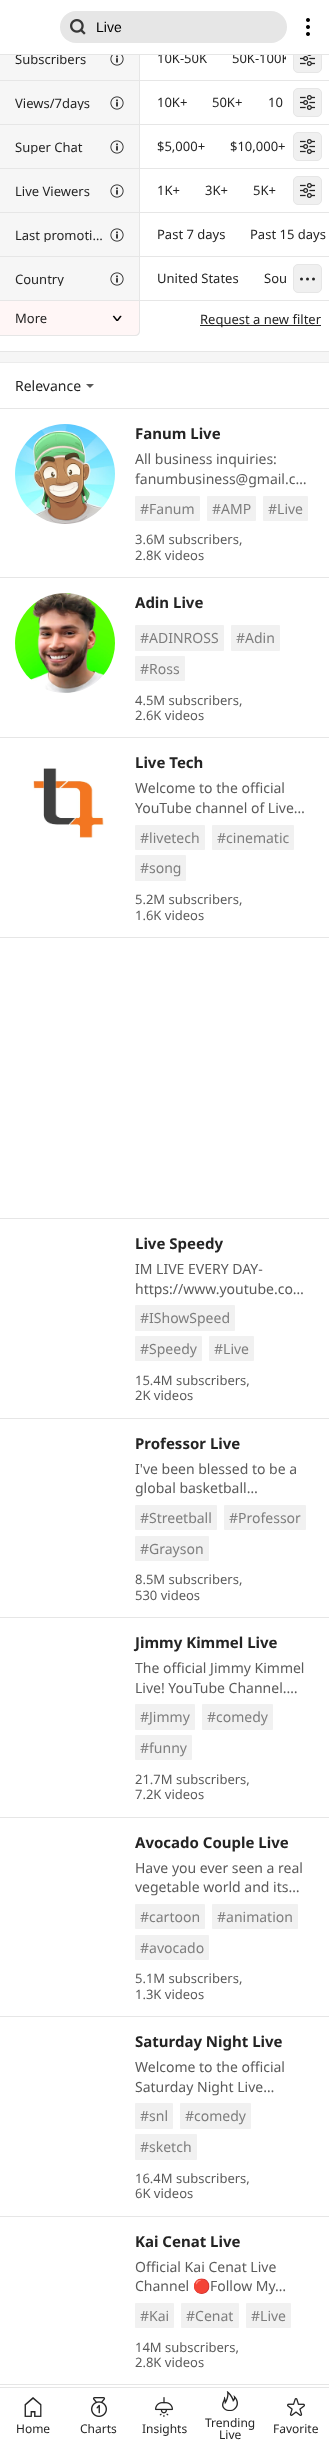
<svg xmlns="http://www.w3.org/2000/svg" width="329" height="2443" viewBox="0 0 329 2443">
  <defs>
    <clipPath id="clip1"><rect x="222" y="44" width="64" height="29"/></clipPath>
    <clipPath id="clip2"><rect x="15" y="96" width="88" height="14"/></clipPath>
    <clipPath id="clip3"><rect x="15" y="140" width="88" height="14"/></clipPath>
    <clipPath id="clip4"><rect x="15" y="228" width="88" height="14"/></clipPath>
    <clipPath id="clip5"><rect x="15" y="272" width="88" height="14"/></clipPath>
  </defs>
  <rect width="100%" height="100%" fill="#ffffff"/>
  <text x="157" y="63" font-family="Noto Sans" font-size="13" fill="#242424">10K-50K</text>
  <g clip-path="url(#clip1)">
    <text x="232" y="63" font-family="Noto Sans" font-size="13" fill="#242424">50K-100K</text>
  </g>
  <rect x="293.5" y="44.5" width="28" height="28" rx="4.5" fill="#f0f0f0" stroke="#e6e6e6"/>
  <rect x="160" y="44" width="162" height="10" fill="#ffffff"/>
  <rect x="0" y="55" width="139" height="25" fill="#f6f6f6"/>
  <text x="15" y="64" font-family="Noto Sans" font-size="13" fill="#242424">Subscribers</text>
  <rect x="0" y="54" width="329" height="1" fill="#e6e6e6"/>
  <rect x="60" y="11" width="227" height="32" rx="16" fill="#e6e6e6"/>
  <image x="70" y="19" width="16" height="16" href="img1.png"/>
  <text x="96" y="32" font-family="Liberation Sans" font-size="14" fill="#000000">Live</text>
  <image x="306" y="18" width="4" height="18" href="img2.png"/>
  <rect x="0" y="351" width="329" height="1" fill="#e6e6e6"/>
  <rect x="0" y="300" width="329" height="1" fill="#e6e6e6"/>
  <rect x="139" y="55" width="1" height="25" fill="#e6e6e6"/>
  <image x="110" y="55" width="14" height="11" href="img3.png"/>
  <image x="300" y="55" width="15" height="11" href="img4.png"/>
  <rect x="0" y="80" width="329" height="1" fill="#e6e6e6"/>
  <rect x="0" y="81" width="139" height="43" fill="#f6f6f6"/>
  <rect x="139" y="81" width="1" height="43" fill="#e6e6e6"/>
  <g clip-path="url(#clip2)">
    <text x="15" y="108" font-family="Noto Sans" font-size="13" fill="#242424">Views/7days</text>
  </g>
  <image x="110" y="96" width="14" height="14" href="img5.png"/>
  <text x="157" y="107" font-family="Noto Sans" font-size="13" fill="#242424">10K+</text>
  <text x="212" y="107" font-family="Noto Sans" font-size="13" fill="#242424">50K+</text>
  <text x="268" y="107" font-family="Noto Sans" font-size="13" fill="#242424">10</text>
  <rect x="293.5" y="88.5" width="28" height="28" rx="4.5" fill="#f0f0f0" stroke="#e6e6e6"/>
  <image x="300" y="95" width="15" height="15" href="img6.png"/>
  <rect x="0" y="124" width="329" height="1" fill="#e6e6e6"/>
  <rect x="0" y="125" width="139" height="43" fill="#f6f6f6"/>
  <rect x="139" y="125" width="1" height="43" fill="#e6e6e6"/>
  <g clip-path="url(#clip3)">
    <text x="15" y="152" font-family="Noto Sans" font-size="13" fill="#242424">Super Chat</text>
  </g>
  <image x="110" y="140" width="14" height="14" href="img5.png"/>
  <text x="157" y="151" font-family="Noto Sans" font-size="13" fill="#242424">$5,000+</text>
  <text x="230" y="151" font-family="Noto Sans" font-size="13" fill="#242424">$10,000+</text>
  <rect x="293.5" y="132.5" width="28" height="28" rx="4.5" fill="#f0f0f0" stroke="#e6e6e6"/>
  <image x="300" y="139" width="15" height="15" href="img6.png"/>
  <rect x="0" y="168" width="329" height="1" fill="#e6e6e6"/>
  <rect x="0" y="169" width="139" height="43" fill="#f6f6f6"/>
  <rect x="139" y="169" width="1" height="43" fill="#e6e6e6"/>
  <text x="15" y="196" font-family="Noto Sans" font-size="13" fill="#242424">Live Viewers</text>
  <image x="110" y="184" width="14" height="14" href="img5.png"/>
  <text x="157" y="195" font-family="Noto Sans" font-size="13" fill="#242424">1K+</text>
  <text x="205" y="195" font-family="Noto Sans" font-size="13" fill="#242424">3K+</text>
  <text x="253" y="195" font-family="Noto Sans" font-size="13" fill="#242424">5K+</text>
  <rect x="293.5" y="176.5" width="28" height="28" rx="4.5" fill="#f0f0f0" stroke="#e6e6e6"/>
  <image x="300" y="183" width="15" height="15" href="img6.png"/>
  <rect x="0" y="212" width="329" height="1" fill="#e6e6e6"/>
  <rect x="0" y="213" width="139" height="43" fill="#f6f6f6"/>
  <rect x="139" y="213" width="1" height="43" fill="#e6e6e6"/>
  <g clip-path="url(#clip4)">
    <text x="15" y="240" font-family="Noto Sans" font-size="13" fill="#242424">Last promoti…</text>
  </g>
  <image x="110" y="228" width="14" height="14" href="img5.png"/>
  <text x="157" y="239" font-family="Noto Sans" font-size="13" fill="#242424">Past 7 days</text>
  <text x="250" y="239" font-family="Noto Sans" font-size="13" fill="#242424">Past 15 days</text>
  <rect x="0" y="256" width="329" height="1" fill="#e6e6e6"/>
  <rect x="0" y="257" width="139" height="43" fill="#f6f6f6"/>
  <rect x="139" y="257" width="1" height="43" fill="#e6e6e6"/>
  <g clip-path="url(#clip5)">
    <text x="15" y="284" font-family="Noto Sans" font-size="13" fill="#242424">Country</text>
  </g>
  <image x="110" y="272" width="14" height="14" href="img5.png"/>
  <text x="157" y="283" font-family="Noto Sans" font-size="13" fill="#242424">United States</text>
  <text x="264" y="283" font-family="Noto Sans" font-size="13" fill="#242424">Sou</text>
  <rect x="293.5" y="264.5" width="28" height="28" rx="4.5" fill="#f0f0f0" stroke="#e6e6e6"/>
  <circle cx="301.5" cy="279" r="1.5" fill="#242424"/>
  <circle cx="307.5" cy="279" r="1.5" fill="#242424"/>
  <circle cx="313.5" cy="279" r="1.5" fill="#242424"/>
  <path d="M0 301H140V331C140 334 138 336 135 336H0Z" fill="#fff6f6"/>
  <path d="M0 301H140V331C140 334 138 336 135 336H0ZM0 301H139V331C139 333 137 335 135 335H0Z" fill="#e6e6e6" fill-rule="evenodd"/>
  <text x="15" y="323" font-family="Noto Sans" font-size="13" fill="#242424">More</text>
  <image x="112" y="315" width="10" height="6" href="img7.png"/>
  <rect x="200" y="325" width="121" height="1" fill="#242424"/>
  <text x="200" y="324" font-family="Noto Sans" font-size="13" fill="#242424">Request a new filter</text>
  <rect x="0" y="352" width="329" height="10" fill="#f6f6f6"/>
  <rect x="0" y="362" width="329" height="1" fill="#ececec"/>
  <rect x="0" y="408" width="329" height="1" fill="#e6e6e6"/>
  <path d="M90 388L86 384H94Z" fill="#5a5a5a"/>
  <text x="15" y="391" font-family="Noto Sans" font-size="14" fill="#242424">Relevance</text>
  <rect x="0" y="577" width="329" height="1" fill="#e6e6e6"/>
  <image x="15" y="424" width="100" height="100" href="img8.png"/>
  <text x="135" y="439" font-family="Noto Sans" font-size="15" font-weight="bold" fill="#242424">Fanum Live</text>
  <text x="135" y="464" font-family="Noto Sans" font-size="14" fill="#5b5b5b">All business inquiries:</text>
  <text x="135" y="484" font-family="Noto Sans" font-size="14" fill="#5b5b5b">fanumbusiness@gmail.c…</text>
  <rect x="135" y="496" width="65" height="25" rx="1" fill="#f1f1f1"/>
  <text x="140" y="514" font-family="Noto Sans" font-size="14" fill="#7e7e7e">#Fanum</text>
  <rect x="207" y="496" width="49" height="25" rx="1" fill="#f1f1f1"/>
  <text x="212" y="514" font-family="Noto Sans" font-size="14" fill="#7e7e7e">#AMP</text>
  <rect x="263" y="496" width="45" height="25" rx="1" fill="#f1f1f1"/>
  <text x="268" y="514" font-family="Noto Sans" font-size="14" fill="#7e7e7e">#Live</text>
  <text x="135" y="544" font-family="Noto Sans" font-size="13" fill="#5b5b5b">3.6M subscribers,</text>
  <text x="135" y="560" font-family="Noto Sans" font-size="13" fill="#5b5b5b">2.8K videos</text>
  <rect x="0" y="737" width="329" height="1" fill="#e6e6e6"/>
  <image x="15" y="593" width="100" height="100" href="img9.png"/>
  <text x="135" y="608" font-family="Noto Sans" font-size="15" font-weight="bold" fill="#242424">Adin Live</text>
  <rect x="135" y="625" width="89" height="26" rx="1" fill="#f1f1f1"/>
  <text x="140" y="643" font-family="Noto Sans" font-size="14" fill="#7e7e7e">#ADINROSS</text>
  <rect x="231" y="625" width="49" height="26" rx="1" fill="#f1f1f1"/>
  <text x="236" y="643" font-family="Noto Sans" font-size="14" fill="#7e7e7e">#Adin</text>
  <rect x="135" y="656" width="50" height="25" rx="1" fill="#f1f1f1"/>
  <text x="140" y="674" font-family="Noto Sans" font-size="14" fill="#7e7e7e">#Ross</text>
  <text x="135" y="705" font-family="Noto Sans" font-size="13" fill="#5b5b5b">4.5M subscribers,</text>
  <text x="135" y="720" font-family="Noto Sans" font-size="13" fill="#5b5b5b">2.6K videos</text>
  <rect x="0" y="937" width="329" height="1" fill="#e6e6e6"/>
  <image x="33" y="768" width="71" height="70" href="img10.png"/>
  <text x="135" y="768" font-family="Noto Sans" font-size="15" font-weight="bold" fill="#242424">Live Tech</text>
  <text x="135" y="793" font-family="Noto Sans" font-size="14" fill="#5b5b5b">Welcome to the official</text>
  <text x="135" y="813" font-family="Noto Sans" font-size="14" fill="#5b5b5b">YouTube channel of Live…</text>
  <rect x="135" y="825" width="70" height="25" rx="1" fill="#f1f1f1"/>
  <text x="140" y="843" font-family="Noto Sans" font-size="14" fill="#7e7e7e">#livetech</text>
  <rect x="212" y="825" width="82" height="25" rx="1" fill="#f1f1f1"/>
  <text x="217" y="843" font-family="Noto Sans" font-size="14" fill="#7e7e7e">#cinematic</text>
  <rect x="135" y="855" width="51" height="26" rx="1" fill="#f1f1f1"/>
  <text x="140" y="873" font-family="Noto Sans" font-size="14" fill="#7e7e7e">#song</text>
  <text x="135" y="904" font-family="Noto Sans" font-size="13" fill="#5b5b5b">5.2M subscribers,</text>
  <text x="135" y="920" font-family="Noto Sans" font-size="13" fill="#5b5b5b">1.6K videos</text>
  <rect x="0" y="1218" width="329" height="1" fill="#e6e6e6"/>
  <rect x="0" y="1418" width="329" height="1" fill="#e6e6e6"/>
  <text x="135" y="1249" font-family="Noto Sans" font-size="15" font-weight="bold" fill="#242424">Live Speedy</text>
  <text x="135" y="1274" font-family="Noto Sans" font-size="14" fill="#5b5b5b">IM LIVE EVERY DAY-</text>
  <text x="135" y="1294" font-family="Noto Sans" font-size="14" fill="#5b5b5b">https://www.youtube.co…</text>
  <rect x="135" y="1305" width="100" height="26" rx="1" fill="#f1f1f1"/>
  <text x="140" y="1323" font-family="Noto Sans" font-size="14" fill="#7e7e7e">#IShowSpeed</text>
  <rect x="135" y="1336" width="67" height="25" rx="1" fill="#f1f1f1"/>
  <text x="140" y="1354" font-family="Noto Sans" font-size="14" fill="#7e7e7e">#Speedy</text>
  <rect x="209" y="1336" width="45" height="25" rx="1" fill="#f1f1f1"/>
  <text x="214" y="1354" font-family="Noto Sans" font-size="14" fill="#7e7e7e">#Live</text>
  <text x="135" y="1385" font-family="Noto Sans" font-size="13" fill="#5b5b5b">15.4M subscribers,</text>
  <text x="135" y="1400" font-family="Noto Sans" font-size="13" fill="#5b5b5b">2K videos</text>
  <rect x="0" y="1617" width="329" height="1" fill="#e6e6e6"/>
  <text x="135" y="1449" font-family="Noto Sans" font-size="15" font-weight="bold" fill="#242424">Professor Live</text>
  <text x="135" y="1474" font-family="Noto Sans" font-size="14" fill="#5b5b5b">I've been blessed to be a</text>
  <text x="135" y="1493" font-family="Noto Sans" font-size="14" fill="#5b5b5b">global basketball…</text>
  <rect x="135" y="1505" width="82" height="25" rx="1" fill="#f1f1f1"/>
  <text x="140" y="1523" font-family="Noto Sans" font-size="14" fill="#7e7e7e">#Streetball</text>
  <rect x="224" y="1505" width="82" height="25" rx="1" fill="#f1f1f1"/>
  <text x="229" y="1523" font-family="Noto Sans" font-size="14" fill="#7e7e7e">#Professor</text>
  <rect x="135" y="1536" width="74" height="25" rx="1" fill="#f1f1f1"/>
  <text x="140" y="1554" font-family="Noto Sans" font-size="14" fill="#7e7e7e">#Grayson</text>
  <text x="135" y="1584" font-family="Noto Sans" font-size="13" fill="#5b5b5b">8.5M subscribers,</text>
  <text x="135" y="1600" font-family="Noto Sans" font-size="13" fill="#5b5b5b">530 videos</text>
  <rect x="0" y="1817" width="329" height="1" fill="#e6e6e6"/>
  <text x="135" y="1648" font-family="Noto Sans" font-size="15" font-weight="bold" fill="#242424">Jimmy Kimmel Live</text>
  <text x="135" y="1673" font-family="Noto Sans" font-size="14" fill="#5b5b5b">The official Jimmy Kimmel</text>
  <text x="135" y="1693" font-family="Noto Sans" font-size="14" fill="#5b5b5b">Live! YouTube Channel.…</text>
  <rect x="135" y="1704" width="60" height="26" rx="1" fill="#f1f1f1"/>
  <text x="140" y="1722" font-family="Noto Sans" font-size="14" fill="#7e7e7e">#Jimmy</text>
  <rect x="202" y="1704" width="71" height="26" rx="1" fill="#f1f1f1"/>
  <text x="207" y="1722" font-family="Noto Sans" font-size="14" fill="#7e7e7e">#comedy</text>
  <rect x="135" y="1735" width="57" height="25" rx="1" fill="#f1f1f1"/>
  <text x="140" y="1753" font-family="Noto Sans" font-size="14" fill="#7e7e7e">#funny</text>
  <text x="135" y="1784" font-family="Noto Sans" font-size="13" fill="#5b5b5b">21.7M subscribers,</text>
  <text x="135" y="1799" font-family="Noto Sans" font-size="13" fill="#5b5b5b">7.2K videos</text>
  <rect x="0" y="2016" width="329" height="1" fill="#e6e6e6"/>
  <text x="135" y="1848" font-family="Noto Sans" font-size="15" font-weight="bold" fill="#242424">Avocado Couple Live</text>
  <text x="135" y="1873" font-family="Noto Sans" font-size="14" fill="#5b5b5b">Have you ever seen a real</text>
  <text x="135" y="1892" font-family="Noto Sans" font-size="14" fill="#5b5b5b">vegetable world and its…</text>
  <rect x="135" y="1904" width="70" height="25" rx="1" fill="#f1f1f1"/>
  <text x="140" y="1922" font-family="Noto Sans" font-size="14" fill="#7e7e7e">#cartoon</text>
  <rect x="212" y="1904" width="86" height="25" rx="1" fill="#f1f1f1"/>
  <text x="217" y="1922" font-family="Noto Sans" font-size="14" fill="#7e7e7e">#animation</text>
  <rect x="135" y="1935" width="74" height="25" rx="1" fill="#f1f1f1"/>
  <text x="140" y="1953" font-family="Noto Sans" font-size="14" fill="#7e7e7e">#avocado</text>
  <text x="135" y="1983" font-family="Noto Sans" font-size="13" fill="#5b5b5b">5.1M subscribers,</text>
  <text x="135" y="1999" font-family="Noto Sans" font-size="13" fill="#5b5b5b">1.3K videos</text>
  <rect x="0" y="2216" width="329" height="1" fill="#e6e6e6"/>
  <text x="135" y="2047" font-family="Noto Sans" font-size="15" font-weight="bold" fill="#242424">Saturday Night Live</text>
  <text x="135" y="2072" font-family="Noto Sans" font-size="14" fill="#5b5b5b">Welcome to the official</text>
  <text x="135" y="2092" font-family="Noto Sans" font-size="14" fill="#5b5b5b">Saturday Night Live…</text>
  <rect x="135" y="2103" width="38" height="26" rx="1" fill="#f1f1f1"/>
  <text x="140" y="2121" font-family="Noto Sans" font-size="14" fill="#7e7e7e">#snl</text>
  <rect x="180" y="2103" width="71" height="26" rx="1" fill="#f1f1f1"/>
  <text x="185" y="2121" font-family="Noto Sans" font-size="14" fill="#7e7e7e">#comedy</text>
  <rect x="135" y="2134" width="62" height="26" rx="1" fill="#f1f1f1"/>
  <text x="140" y="2152" font-family="Noto Sans" font-size="14" fill="#7e7e7e">#sketch</text>
  <text x="135" y="2183" font-family="Noto Sans" font-size="13" fill="#5b5b5b">16.4M subscribers,</text>
  <text x="135" y="2198" font-family="Noto Sans" font-size="13" fill="#5b5b5b">6K videos</text>
  <rect x="0" y="2384" width="329" height="1" fill="#e6e6e6"/>
  <text x="135" y="2247" font-family="Noto Sans" font-size="15" font-weight="bold" fill="#242424">Kai Cenat Live</text>
  <text x="135" y="2272" font-family="Noto Sans" font-size="14" fill="#5b5b5b">Official Kai Cenat Live</text>
  <text x="135" y="2291" font-family="Noto Sans" font-size="14" fill="#5b5b5b">Channel</text>
  <text x="193" y="2291" font-family="Noto Color Emoji" font-size="14" fill="#5b5b5b">🔴</text>
  <text x="210" y="2291" font-family="Noto Sans" font-size="14" fill="#5b5b5b">Follow My…</text>
  <rect x="135" y="2303" width="39" height="25" rx="1" fill="#f1f1f1"/>
  <text x="140" y="2321" font-family="Noto Sans" font-size="14" fill="#7e7e7e">#Kai</text>
  <rect x="181" y="2303" width="58" height="25" rx="1" fill="#f1f1f1"/>
  <text x="186" y="2321" font-family="Noto Sans" font-size="14" fill="#7e7e7e">#Cenat</text>
  <rect x="246" y="2303" width="45" height="25" rx="1" fill="#f1f1f1"/>
  <text x="251" y="2321" font-family="Noto Sans" font-size="14" fill="#7e7e7e">#Live</text>
  <text x="135" y="2352" font-family="Noto Sans" font-size="13" fill="#5b5b5b">14M subscribers,</text>
  <text x="135" y="2367" font-family="Noto Sans" font-size="13" fill="#5b5b5b">2.8K videos</text>
  <rect x="0" y="2387" width="329" height="1" fill="#e6e6e6"/>
  <image x="24" y="2397" width="18" height="20" href="img11.png"/>
  <text x="16" y="2433" font-family="Noto Sans" font-size="12" fill="#242424">Home</text>
  <image x="91" y="2397" width="16" height="20" href="img12.png"/>
  <text x="80" y="2433" font-family="Noto Sans" font-size="12" fill="#242424">Charts</text>
  <image x="155" y="2397" width="18" height="20" href="img13.png"/>
  <text x="142" y="2433" font-family="Noto Sans" font-size="12" fill="#242424">Insights</text>
  <image x="222" y="2391" width="16" height="20" href="img14.png"/>
  <text x="205" y="2427" font-family="Noto Sans" font-size="12" fill="#242424">Trending</text>
  <text x="219" y="2439" font-family="Noto Sans" font-size="12" fill="#242424">Live</text>
  <image x="287" y="2398" width="18" height="18" href="img15.png"/>
  <text x="273" y="2433" font-family="Noto Sans" font-size="12" fill="#242424">Favorite</text>
</svg>
